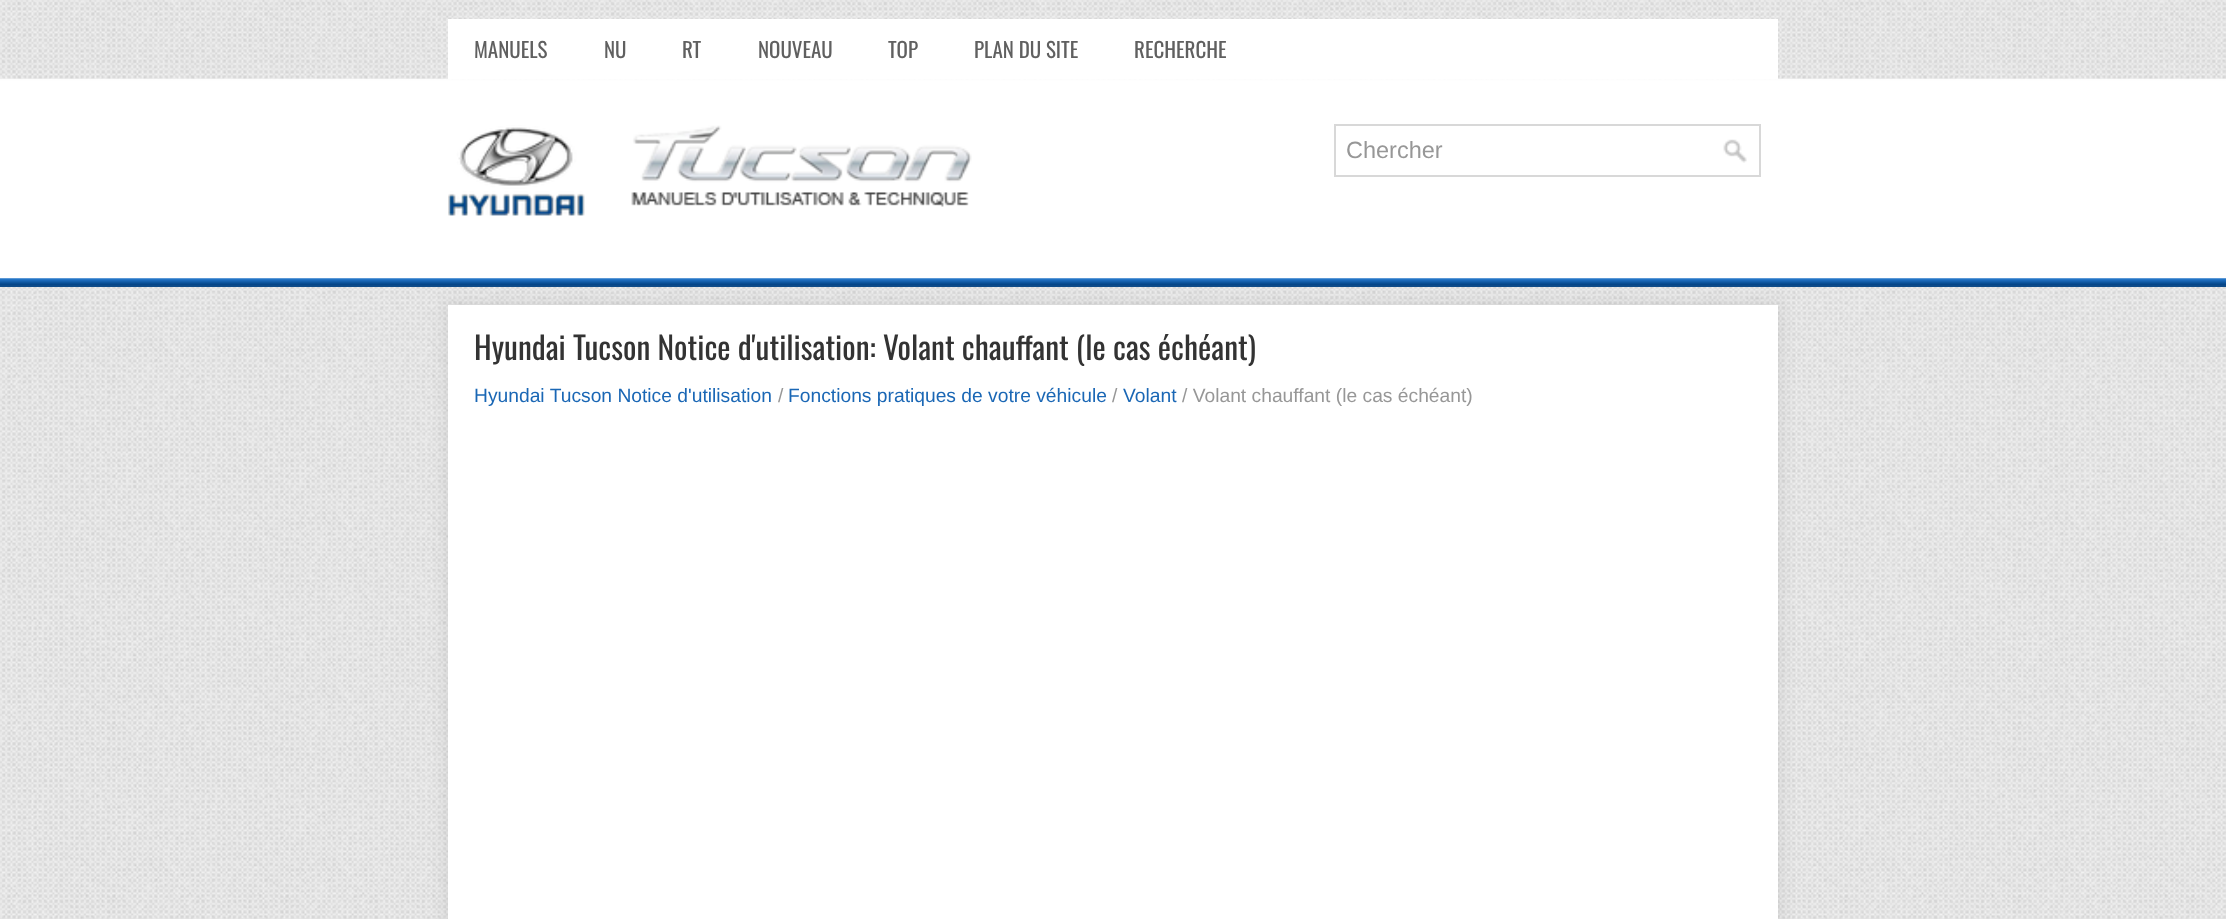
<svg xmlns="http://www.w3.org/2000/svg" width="2226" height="919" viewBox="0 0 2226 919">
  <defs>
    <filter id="blur1" x="-50%" y="-200%" width="200%" height="500%"><feGaussianBlur stdDeviation="8"/></filter>
  </defs>
  <rect width="100%" height="100%" fill="#ffffff"/>
  <image x="0" y="0" width="2226" height="919" href="img1.png"/>
  <rect x="448" y="19" width="1330" height="60" fill="#ffffff"/>
  <text x="474" y="58" font-family="Oswald" font-size="21" fill="#606060">MANUELS</text>
  <text x="604" y="58" font-family="Oswald" font-size="21" fill="#606060">NU</text>
  <text x="682" y="58" font-family="Oswald" font-size="21" fill="#606060">RT</text>
  <text x="758" y="58" font-family="Oswald" font-size="21" fill="#606060">NOUVEAU</text>
  <text x="888" y="58" font-family="Oswald" font-size="21" fill="#606060">TOP</text>
  <text x="974" y="58" font-family="Oswald" font-size="21" fill="#606060">PLAN DU SITE</text>
  <text x="1134" y="58" font-family="Oswald" font-size="21" fill="#606060">RECHERCHE</text>
  <image x="448" y="125" width="524" height="91" href="img2.png"/>
  <rect x="1335" y="125" width="425" height="51" fill="none" stroke="#d8d8d8" stroke-width="2"/>
  <text x="1346" y="158" font-family="Liberation Sans" font-size="23.5" fill="#979797">Chercher</text>
  <image x="1723" y="139" width="24" height="24" href="img3.png"/>
  <rect x="446" y="303" width="1334" height="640" fill="#606060" fill-opacity="0.15" filter="url(#blur1)"/>
  <rect x="448" y="305" width="1330" height="614" fill="#ffffff"/>
  <text x="474" y="360" font-family="Oswald" font-size="31.5" fill="#333333">Hyundai Tucson Notice d'utilisation: Volant chauffant (le cas échéant)</text>
  <text x="474" y="402" font-family="Liberation Sans" font-size="19.25" fill="#1a67b5">Hyundai Tucson Notice d'utilisation</text>
  <text x="778" y="402" font-family="Liberation Sans" font-size="19.25" fill="#979797">/</text>
  <text x="788" y="402" font-family="Liberation Sans" font-size="19.25" fill="#1a67b5">Fonctions pratiques de votre véhicule</text>
  <text x="1112" y="402" font-family="Liberation Sans" font-size="19.25" fill="#979797">/</text>
  <text x="1123" y="402" font-family="Liberation Sans" font-size="19.25" fill="#1a67b5">Volant</text>
  <text x="1182" y="402" font-family="Liberation Sans" font-size="19.25" fill="#979797">/ Volant chauffant (le cas échéant)</text>
</svg>
